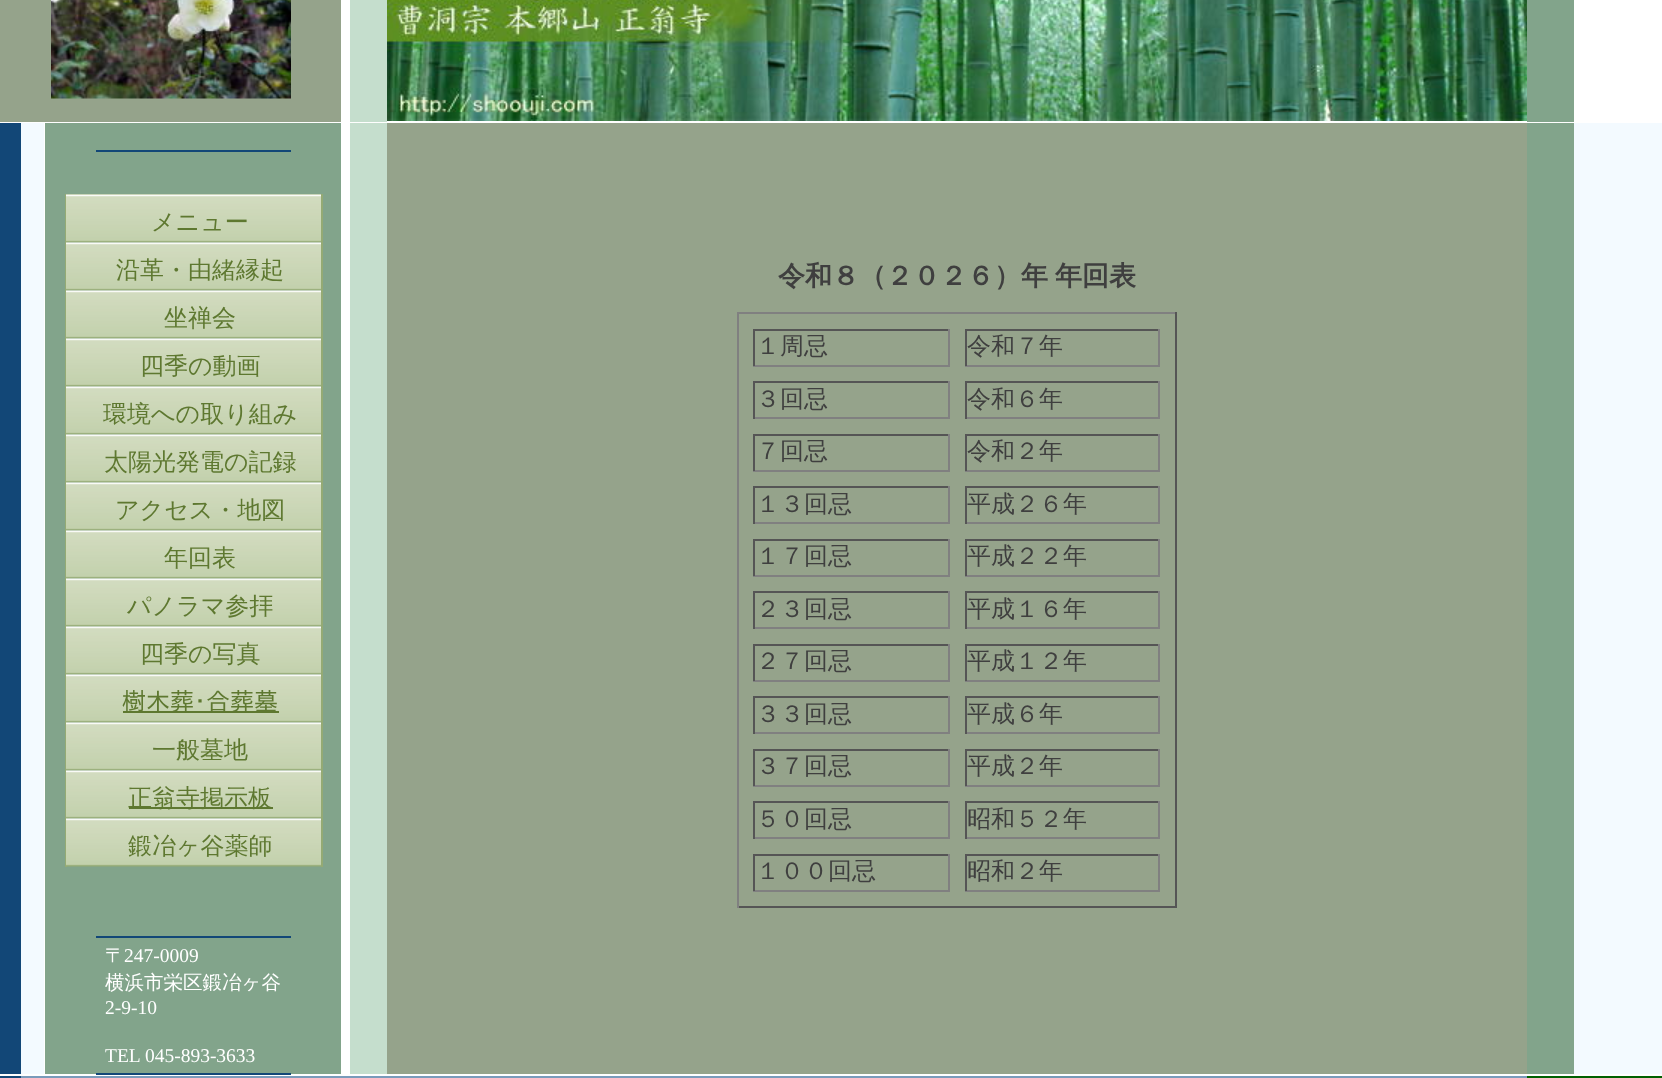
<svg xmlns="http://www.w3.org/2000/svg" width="1662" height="1078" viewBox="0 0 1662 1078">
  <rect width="100%" height="100%" fill="#ffffff"/>
  <rect x="0" y="0" width="341" height="122" fill="#95a38b"/>
  <image x="51" y="0" width="240" height="99" href="img1.png"/>
  <rect x="350" y="0" width="37" height="122" fill="#c5decd"/>
  <image x="387" y="0" width="1140" height="121" href="img2.png"/>
  <rect x="1527" y="0" width="47" height="122" fill="#82a48b"/>
  <rect x="0" y="123" width="21" height="951" fill="#124777"/>
  <rect x="21" y="123" width="23" height="951" fill="#f3faff"/>
  <rect x="45" y="123" width="296" height="951" fill="#82a48b"/>
  <rect x="96" y="150" width="195" height="2" fill="#124777"/>
  <rect x="65" y="194" width="258" height="1" fill="#94aa74"/>
  <rect x="321" y="194" width="2" height="673" fill="#94aa74"/>
  <rect x="65" y="194" width="2" height="673" fill="#94aa74"/>
  <image x="66" y="194" width="255" height="49" href="img3.png"/>
  <text x="151" y="230" font-family="WenQuanYi Zen Hei" font-size="24" font-weight="500" fill="#5e7830">メニュー</text>
  <image x="66" y="242" width="255" height="49" href="img4.png"/>
  <text x="116" y="278" font-family="WenQuanYi Zen Hei" font-size="24" font-weight="500" fill="#5e7830">沿革・由緒縁起</text>
  <image x="66" y="290" width="255" height="49" href="img4.png"/>
  <text x="164" y="326" font-family="WenQuanYi Zen Hei" font-size="24" font-weight="500" fill="#5e7830">坐禅会</text>
  <image x="66" y="338" width="255" height="49" href="img4.png"/>
  <text x="140" y="374" font-family="WenQuanYi Zen Hei" font-size="24" font-weight="500" fill="#5e7830">四季の動画</text>
  <image x="66" y="386" width="255" height="49" href="img4.png"/>
  <text x="103" y="422" font-family="WenQuanYi Zen Hei" font-size="24" font-weight="500" fill="#5e7830">環境への取り組み</text>
  <image x="66" y="434" width="255" height="49" href="img4.png"/>
  <text x="104" y="470" font-family="WenQuanYi Zen Hei" font-size="24" font-weight="500" fill="#5e7830">太陽光発電の記録</text>
  <image x="66" y="482" width="255" height="49" href="img4.png"/>
  <text x="115" y="518" font-family="WenQuanYi Zen Hei" font-size="24" font-weight="500" fill="#5e7830">アクセス・地図</text>
  <image x="66" y="530" width="255" height="49" href="img4.png"/>
  <text x="164" y="566" font-family="WenQuanYi Zen Hei" font-size="24" font-weight="500" fill="#5e7830">年回表</text>
  <image x="66" y="578" width="255" height="49" href="img4.png"/>
  <text x="127" y="614" font-family="WenQuanYi Zen Hei" font-size="24" font-weight="500" fill="#5e7830">パノラマ参拝</text>
  <image x="66" y="626" width="255" height="49" href="img4.png"/>
  <text x="140" y="662" font-family="WenQuanYi Zen Hei" font-size="24" font-weight="500" fill="#5e7830">四季の写真</text>
  <image x="66" y="674" width="255" height="49" href="img4.png"/>
  <rect x="123" y="711" width="156" height="2" fill="#5e7830"/>
  <text x="122" y="710" font-family="IPAPGothic" font-size="24" fill="#5e7830">樹木葬･合葬墓</text>
  <image x="66" y="722" width="255" height="49" href="img4.png"/>
  <text x="152" y="758" font-family="WenQuanYi Zen Hei" font-size="24" font-weight="500" fill="#5e7830">一般墓地</text>
  <image x="66" y="770" width="255" height="49" href="img4.png"/>
  <rect x="129" y="807" width="144" height="2" fill="#5e7830"/>
  <text x="128" y="806" font-family="WenQuanYi Zen Hei" font-size="24" font-weight="500" fill="#5e7830">正翁寺掲示板</text>
  <image x="66" y="818" width="255" height="49" href="img4.png"/>
  <text x="128" y="854" font-family="WenQuanYi Zen Hei" font-size="24" font-weight="500" fill="#5e7830">鍛冶ヶ谷薬師</text>
  <rect x="96" y="936" width="195" height="2" fill="#124777"/>
  <text x="105" y="962" font-family="WenQuanYi Zen Hei" font-size="19.5" font-weight="500" fill="#ffffff">〒</text>
  <text x="124" y="962" font-family="Liberation Serif" font-size="19.5" fill="#ffffff">247-0009</text>
  <text x="105" y="989" font-family="WenQuanYi Zen Hei" font-size="19.5" font-weight="500" fill="#ffffff">横浜市栄区鍛冶ヶ谷</text>
  <text x="105" y="1014" font-family="Liberation Serif" font-size="19.5" fill="#ffffff">2-9-10</text>
  <text x="105" y="1062" font-family="Liberation Serif" font-size="19.5" fill="#ffffff">TEL 045-893-3633</text>
  <rect x="96" y="1073" width="195" height="2" fill="#124777"/>
  <rect x="350" y="123" width="37" height="951" fill="#c5decd"/>
  <rect x="387" y="123" width="1140" height="951" fill="#95a38b"/>
  <text x="778" y="285" word-spacing="-1" font-family="WenQuanYi Zen Hei" font-size="27" font-weight="bold" fill="#3f3f3f">令和８（２０２６）年 年回表</text>
  <rect x="737" y="312" width="439" height="2" fill="#808080"/>
  <rect x="1175" y="312" width="2" height="596" fill="#555555"/>
  <rect x="737" y="906" width="439" height="2" fill="#555555"/>
  <rect x="737" y="312" width="2" height="596" fill="#808080"/>
  <rect x="753" y="329" width="197" height="2" fill="#555555"/>
  <rect x="948" y="329" width="2" height="37" fill="#808080"/>
  <rect x="753" y="365" width="197" height="2" fill="#808080"/>
  <rect x="753" y="329" width="2" height="37" fill="#555555"/>
  <text x="756" y="354" font-family="WenQuanYi Zen Hei" font-size="24" font-weight="500" fill="#3f3f3f">１周忌</text>
  <rect x="965" y="329" width="195" height="2" fill="#555555"/>
  <rect x="1158" y="329" width="2" height="37" fill="#808080"/>
  <rect x="965" y="365" width="195" height="2" fill="#808080"/>
  <rect x="965" y="329" width="2" height="37" fill="#555555"/>
  <text x="967" y="354" font-family="WenQuanYi Zen Hei" font-size="24" font-weight="500" fill="#3f3f3f">令和７年</text>
  <rect x="753" y="381" width="197" height="2" fill="#555555"/>
  <rect x="948" y="381" width="2" height="38" fill="#808080"/>
  <rect x="753" y="417" width="197" height="2" fill="#808080"/>
  <rect x="753" y="381" width="2" height="38" fill="#555555"/>
  <text x="756" y="407" font-family="WenQuanYi Zen Hei" font-size="24" font-weight="500" fill="#3f3f3f">３回忌</text>
  <rect x="965" y="381" width="195" height="2" fill="#555555"/>
  <rect x="1158" y="381" width="2" height="38" fill="#808080"/>
  <rect x="965" y="417" width="195" height="2" fill="#808080"/>
  <rect x="965" y="381" width="2" height="38" fill="#555555"/>
  <text x="967" y="407" font-family="WenQuanYi Zen Hei" font-size="24" font-weight="500" fill="#3f3f3f">令和６年</text>
  <rect x="753" y="434" width="197" height="2" fill="#555555"/>
  <rect x="948" y="434" width="2" height="37" fill="#808080"/>
  <rect x="753" y="470" width="197" height="2" fill="#808080"/>
  <rect x="753" y="434" width="2" height="37" fill="#555555"/>
  <text x="756" y="459" font-family="WenQuanYi Zen Hei" font-size="24" font-weight="500" fill="#3f3f3f">７回忌</text>
  <rect x="965" y="434" width="195" height="2" fill="#555555"/>
  <rect x="1158" y="434" width="2" height="37" fill="#808080"/>
  <rect x="965" y="470" width="195" height="2" fill="#808080"/>
  <rect x="965" y="434" width="2" height="37" fill="#555555"/>
  <text x="967" y="459" font-family="WenQuanYi Zen Hei" font-size="24" font-weight="500" fill="#3f3f3f">令和２年</text>
  <rect x="753" y="486" width="197" height="2" fill="#555555"/>
  <rect x="948" y="486" width="2" height="38" fill="#808080"/>
  <rect x="753" y="522" width="197" height="2" fill="#808080"/>
  <rect x="753" y="486" width="2" height="38" fill="#555555"/>
  <text x="756" y="512" font-family="WenQuanYi Zen Hei" font-size="24" font-weight="500" fill="#3f3f3f">１３回忌</text>
  <rect x="965" y="486" width="195" height="2" fill="#555555"/>
  <rect x="1158" y="486" width="2" height="38" fill="#808080"/>
  <rect x="965" y="522" width="195" height="2" fill="#808080"/>
  <rect x="965" y="486" width="2" height="38" fill="#555555"/>
  <text x="967" y="512" font-family="WenQuanYi Zen Hei" font-size="24" font-weight="500" fill="#3f3f3f">平成２６年</text>
  <rect x="753" y="539" width="197" height="2" fill="#555555"/>
  <rect x="948" y="539" width="2" height="37" fill="#808080"/>
  <rect x="753" y="575" width="197" height="2" fill="#808080"/>
  <rect x="753" y="539" width="2" height="37" fill="#555555"/>
  <text x="756" y="564" font-family="WenQuanYi Zen Hei" font-size="24" font-weight="500" fill="#3f3f3f">１７回忌</text>
  <rect x="965" y="539" width="195" height="2" fill="#555555"/>
  <rect x="1158" y="539" width="2" height="37" fill="#808080"/>
  <rect x="965" y="575" width="195" height="2" fill="#808080"/>
  <rect x="965" y="539" width="2" height="37" fill="#555555"/>
  <text x="967" y="564" font-family="WenQuanYi Zen Hei" font-size="24" font-weight="500" fill="#3f3f3f">平成２２年</text>
  <rect x="753" y="591" width="197" height="2" fill="#555555"/>
  <rect x="948" y="591" width="2" height="38" fill="#808080"/>
  <rect x="753" y="627" width="197" height="2" fill="#808080"/>
  <rect x="753" y="591" width="2" height="38" fill="#555555"/>
  <text x="756" y="617" font-family="WenQuanYi Zen Hei" font-size="24" font-weight="500" fill="#3f3f3f">２３回忌</text>
  <rect x="965" y="591" width="195" height="2" fill="#555555"/>
  <rect x="1158" y="591" width="2" height="38" fill="#808080"/>
  <rect x="965" y="627" width="195" height="2" fill="#808080"/>
  <rect x="965" y="591" width="2" height="38" fill="#555555"/>
  <text x="967" y="617" font-family="WenQuanYi Zen Hei" font-size="24" font-weight="500" fill="#3f3f3f">平成１６年</text>
  <rect x="753" y="644" width="197" height="2" fill="#555555"/>
  <rect x="948" y="644" width="2" height="37" fill="#808080"/>
  <rect x="753" y="680" width="197" height="2" fill="#808080"/>
  <rect x="753" y="644" width="2" height="37" fill="#555555"/>
  <text x="756" y="669" font-family="WenQuanYi Zen Hei" font-size="24" font-weight="500" fill="#3f3f3f">２７回忌</text>
  <rect x="965" y="644" width="195" height="2" fill="#555555"/>
  <rect x="1158" y="644" width="2" height="37" fill="#808080"/>
  <rect x="965" y="680" width="195" height="2" fill="#808080"/>
  <rect x="965" y="644" width="2" height="37" fill="#555555"/>
  <text x="967" y="669" font-family="WenQuanYi Zen Hei" font-size="24" font-weight="500" fill="#3f3f3f">平成１２年</text>
  <rect x="753" y="696" width="197" height="2" fill="#555555"/>
  <rect x="948" y="696" width="2" height="38" fill="#808080"/>
  <rect x="753" y="732" width="197" height="2" fill="#808080"/>
  <rect x="753" y="696" width="2" height="38" fill="#555555"/>
  <text x="756" y="722" font-family="WenQuanYi Zen Hei" font-size="24" font-weight="500" fill="#3f3f3f">３３回忌</text>
  <rect x="965" y="696" width="195" height="2" fill="#555555"/>
  <rect x="1158" y="696" width="2" height="38" fill="#808080"/>
  <rect x="965" y="732" width="195" height="2" fill="#808080"/>
  <rect x="965" y="696" width="2" height="38" fill="#555555"/>
  <text x="967" y="722" font-family="WenQuanYi Zen Hei" font-size="24" font-weight="500" fill="#3f3f3f">平成６年</text>
  <rect x="753" y="749" width="197" height="2" fill="#555555"/>
  <rect x="948" y="749" width="2" height="37" fill="#808080"/>
  <rect x="753" y="785" width="197" height="2" fill="#808080"/>
  <rect x="753" y="749" width="2" height="37" fill="#555555"/>
  <text x="756" y="774" font-family="WenQuanYi Zen Hei" font-size="24" font-weight="500" fill="#3f3f3f">３７回忌</text>
  <rect x="965" y="749" width="195" height="2" fill="#555555"/>
  <rect x="1158" y="749" width="2" height="37" fill="#808080"/>
  <rect x="965" y="785" width="195" height="2" fill="#808080"/>
  <rect x="965" y="749" width="2" height="37" fill="#555555"/>
  <text x="967" y="774" font-family="WenQuanYi Zen Hei" font-size="24" font-weight="500" fill="#3f3f3f">平成２年</text>
  <rect x="753" y="801" width="197" height="2" fill="#555555"/>
  <rect x="948" y="801" width="2" height="38" fill="#808080"/>
  <rect x="753" y="837" width="197" height="2" fill="#808080"/>
  <rect x="753" y="801" width="2" height="38" fill="#555555"/>
  <text x="756" y="827" font-family="WenQuanYi Zen Hei" font-size="24" font-weight="500" fill="#3f3f3f">５０回忌</text>
  <rect x="965" y="801" width="195" height="2" fill="#555555"/>
  <rect x="1158" y="801" width="2" height="38" fill="#808080"/>
  <rect x="965" y="837" width="195" height="2" fill="#808080"/>
  <rect x="965" y="801" width="2" height="38" fill="#555555"/>
  <text x="967" y="827" font-family="WenQuanYi Zen Hei" font-size="24" font-weight="500" fill="#3f3f3f">昭和５２年</text>
  <rect x="753" y="854" width="197" height="2" fill="#555555"/>
  <rect x="948" y="854" width="2" height="37" fill="#808080"/>
  <rect x="753" y="890" width="197" height="2" fill="#808080"/>
  <rect x="753" y="854" width="2" height="37" fill="#555555"/>
  <text x="756" y="879" font-family="WenQuanYi Zen Hei" font-size="24" font-weight="500" fill="#3f3f3f">１００回忌</text>
  <rect x="965" y="854" width="195" height="2" fill="#555555"/>
  <rect x="1158" y="854" width="2" height="37" fill="#808080"/>
  <rect x="965" y="890" width="195" height="2" fill="#808080"/>
  <rect x="965" y="854" width="2" height="37" fill="#555555"/>
  <text x="967" y="879" font-family="WenQuanYi Zen Hei" font-size="24" font-weight="500" fill="#3f3f3f">昭和２年</text>
  <rect x="1527" y="123" width="47" height="951" fill="#82a48b"/>
  <rect x="1574" y="123" width="88" height="951" fill="#f3faff"/>
  <rect x="0" y="1076" width="21" height="2" fill="#124777"/>
  <rect x="21" y="1076" width="1506" height="2" fill="#799bbb"/>
  <rect x="1527" y="1076" width="135" height="2" fill="#006000"/>
</svg>
